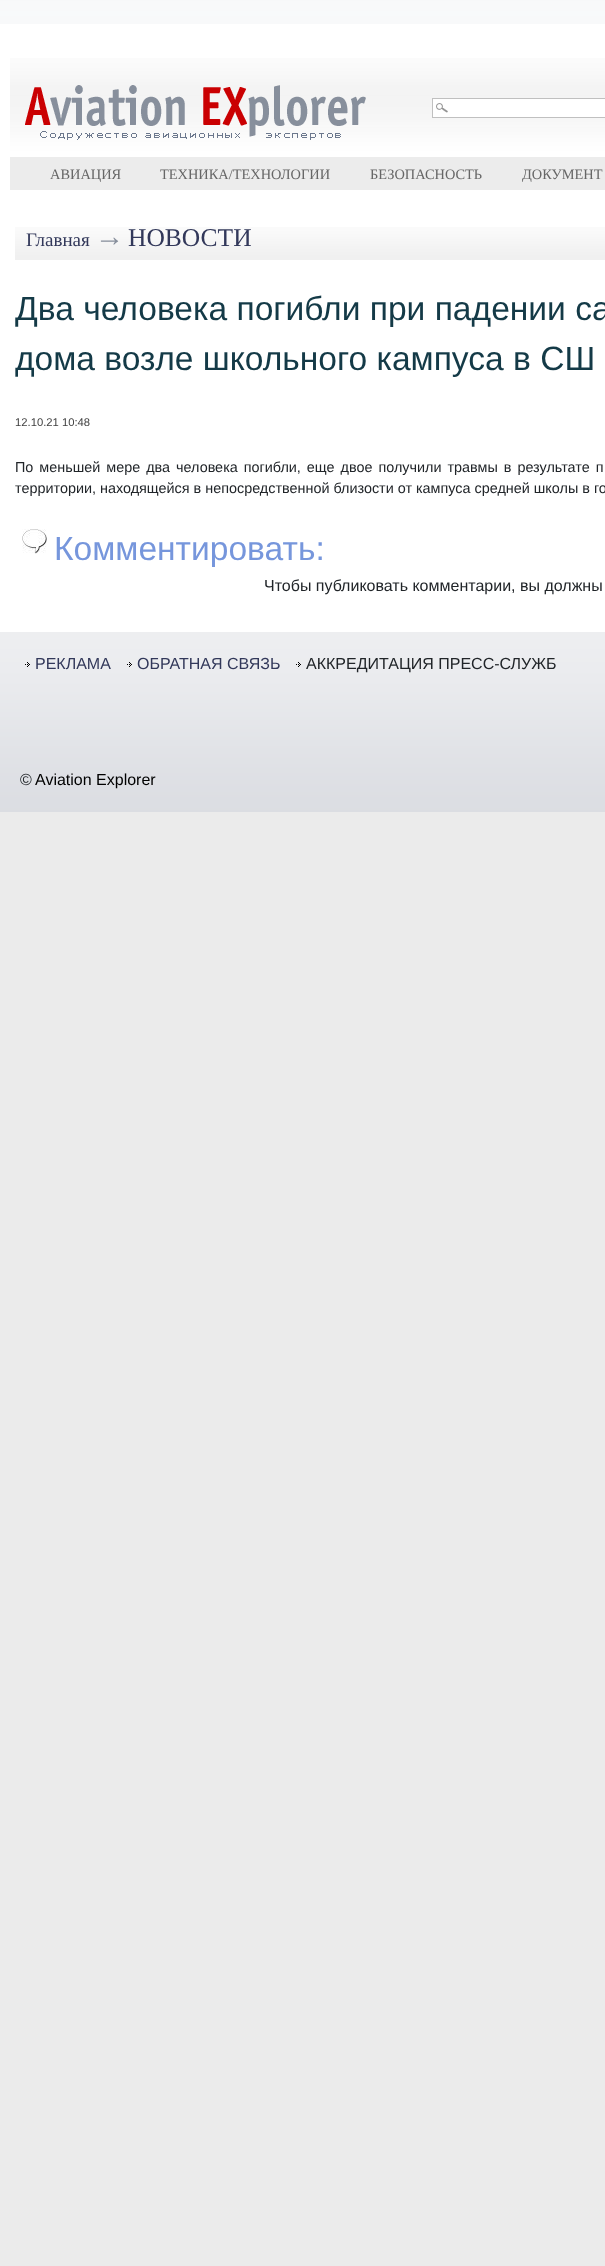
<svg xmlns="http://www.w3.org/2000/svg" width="605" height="2266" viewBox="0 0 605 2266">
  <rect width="100%" height="100%" fill="#ffffff"/>
  <image x="0" y="0" width="605" height="2266" href="img1.png"/>
  <rect x="0" y="24" width="605" height="608" fill="#ffffff"/>
  <image x="10" y="58" width="595" height="99" href="img2.png"/>
  <image x="25" y="85" width="341" height="55" href="img3.png"/>
  <image x="432" y="98" width="173" height="20" href="img4.png"/>
  <rect x="10" y="157" width="595" height="33" fill="#ececec"/>
  <text x="50" y="179" font-family="Liberation Serif" font-size="14.4" fill="#666666">АВИАЦИЯ</text>
  <text x="160" y="179" font-family="Liberation Serif" font-size="14.4" fill="#666666">ТЕХНИКА/ТЕХНОЛОГИИ</text>
  <text x="370" y="179" font-family="Liberation Serif" font-size="14.4" fill="#666666">БЕЗОПАСНОСТЬ</text>
  <text x="522" y="179" font-family="Liberation Serif" font-size="14.4" fill="#666666">ДОКУМЕНТ</text>
  <image x="15" y="227" width="590" height="33" href="img5.png"/>
  <text x="26" y="246" font-family="Liberation Serif" font-size="19" fill="#32385a">Главная</text>
  <text x="95" y="246" font-family="Liberation Sans" font-size="29" fill="#878f9c">→</text>
  <text x="128" y="246" font-family="Liberation Serif" font-size="25.5" fill="#32385a">НОВОСТИ</text>
  <text x="15" y="320" font-family="Liberation Sans" font-size="33.6" fill="#143a47">Два человека погибли при падении са</text>
  <text x="15" y="370" font-family="Liberation Sans" font-size="33.6" fill="#143a47">дома возле школьного кампуса в СШ</text>
  <text x="15" y="426" font-family="Liberation Sans" font-size="11.25" fill="#414141">12.10.21 10:48</text>
  <text x="15" y="472" word-spacing="2" font-family="Liberation Sans" font-size="14.4" fill="#212529">По меньшей мере два человека погибли, еще двое получили травмы в результате п</text>
  <text x="15" y="493" font-family="Liberation Sans" font-size="14.4" fill="#212529">территории, находящейся в непосредственной близости от кампуса средней школы в го</text>
  <image x="22" y="529" width="25" height="25" href="img6.png"/>
  <text x="54" y="560" font-family="Liberation Sans" font-size="33.6" fill="#7696dc">Комментировать:</text>
  <text x="264" y="591" font-family="Liberation Sans" font-size="16" fill="#212529">Чтобы публиковать комментарии, вы должны</text>
  <image x="0" y="632" width="605" height="180" href="img7.png"/>
  <image x="25" y="662" width="5" height="5" href="img8.png"/>
  <text x="35" y="669" font-family="Liberation Sans" font-size="16" fill="#32385a">РЕКЛАМА</text>
  <image x="127" y="662" width="5" height="5" href="img8.png"/>
  <text x="137" y="669" font-family="Liberation Sans" font-size="16" fill="#32385a">ОБРАТНАЯ СВЯЗЬ</text>
  <image x="296" y="662" width="5" height="5" href="img8.png"/>
  <text x="306" y="669" font-family="Liberation Sans" font-size="16" fill="#212529">АККРЕДИТАЦИЯ ПРЕСС-СЛУЖБ</text>
  <text x="20" y="785" font-family="Liberation Sans" font-size="16" fill="#212529">©</text>
  <text x="35" y="785" font-family="Liberation Sans" font-size="16" fill="#000000">Aviation Explorer</text>
</svg>
